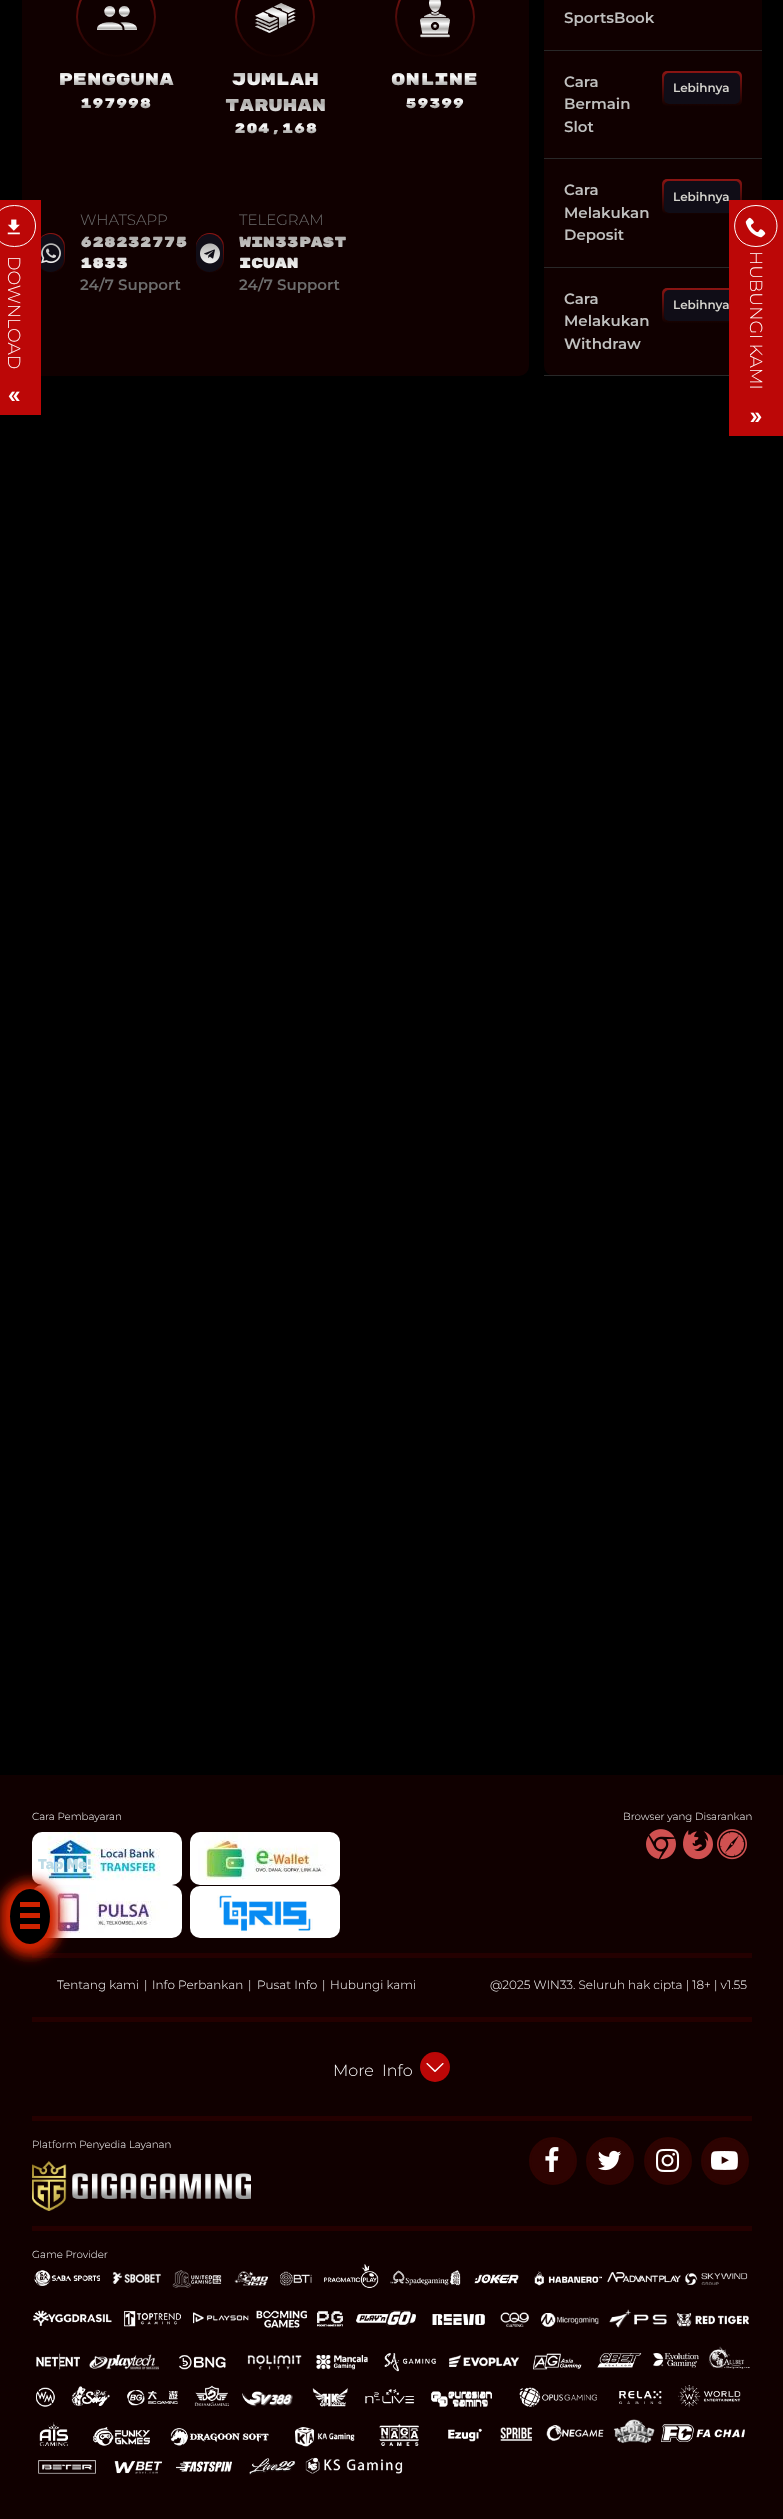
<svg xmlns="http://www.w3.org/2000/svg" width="783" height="2519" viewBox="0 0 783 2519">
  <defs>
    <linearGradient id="g1" gradientUnits="userSpaceOnUse" x1="116" y1="67" x2="116" y2="93"><stop offset="0" stop-color="#a5a3a1"/><stop offset="0.37" stop-color="#fefefe"/><stop offset="0.7" stop-color="#adaba9"/><stop offset="1" stop-color="#ffffff"/></linearGradient>
    <linearGradient id="g2" gradientUnits="userSpaceOnUse" x1="116" y1="93" x2="116" y2="114"><stop offset="0" stop-color="#a5a3a1"/><stop offset="0.37" stop-color="#fefefe"/><stop offset="0.7" stop-color="#adaba9"/><stop offset="1" stop-color="#ffffff"/></linearGradient>
    <linearGradient id="g3" gradientUnits="userSpaceOnUse" x1="275" y1="67" x2="275" y2="118"><stop offset="0" stop-color="#a5a3a1"/><stop offset="0.37" stop-color="#fefefe"/><stop offset="0.7" stop-color="#adaba9"/><stop offset="1" stop-color="#ffffff"/></linearGradient>
    <linearGradient id="g4" gradientUnits="userSpaceOnUse" x1="275" y1="118" x2="275" y2="139"><stop offset="0" stop-color="#a5a3a1"/><stop offset="0.37" stop-color="#fefefe"/><stop offset="0.7" stop-color="#adaba9"/><stop offset="1" stop-color="#ffffff"/></linearGradient>
    <linearGradient id="g5" gradientUnits="userSpaceOnUse" x1="435" y1="67" x2="435" y2="93"><stop offset="0" stop-color="#a5a3a1"/><stop offset="0.37" stop-color="#fefefe"/><stop offset="0.7" stop-color="#adaba9"/><stop offset="1" stop-color="#ffffff"/></linearGradient>
    <linearGradient id="g6" gradientUnits="userSpaceOnUse" x1="435" y1="93" x2="435" y2="114"><stop offset="0" stop-color="#a5a3a1"/><stop offset="0.37" stop-color="#fefefe"/><stop offset="0.7" stop-color="#adaba9"/><stop offset="1" stop-color="#ffffff"/></linearGradient>
    <linearGradient id="g7" gradientUnits="userSpaceOnUse" x1="138" y1="232" x2="138" y2="274"><stop offset="0" stop-color="#a5a3a1"/><stop offset="1" stop-color="#fefefe"/><stop offset="1" stop-color="#adaba9"/><stop offset="1" stop-color="#ffffff"/></linearGradient>
    <linearGradient id="g8" gradientUnits="userSpaceOnUse" x1="297" y1="232" x2="297" y2="274"><stop offset="0" stop-color="#a5a3a1"/><stop offset="1" stop-color="#fefefe"/><stop offset="1" stop-color="#adaba9"/><stop offset="1" stop-color="#ffffff"/></linearGradient>
    <linearGradient id="g9" gradientUnits="userSpaceOnUse" x1="51" y1="233" x2="51" y2="273"><stop offset="0" stop-color="#8c1513"/><stop offset="1" stop-color="#120100"/></linearGradient>
    <linearGradient id="g10" gradientUnits="userSpaceOnUse" x1="116" y1="-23" x2="116" y2="57"><stop offset="0" stop-color="#8c1513"/><stop offset="1" stop-color="#120100"/></linearGradient>
    <linearGradient id="g11" gradientUnits="userSpaceOnUse" x1="275" y1="-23" x2="275" y2="57"><stop offset="0" stop-color="#8c1513"/><stop offset="1" stop-color="#120100"/></linearGradient>
    <linearGradient id="g12" gradientUnits="userSpaceOnUse" x1="435" y1="-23" x2="435" y2="57"><stop offset="0" stop-color="#8c1513"/><stop offset="1" stop-color="#120100"/></linearGradient>
    <linearGradient id="g13" gradientUnits="userSpaceOnUse" x1="210" y1="233" x2="210" y2="273"><stop offset="0" stop-color="#8c1513"/><stop offset="1" stop-color="#120100"/></linearGradient>
    <linearGradient id="g14" gradientUnits="userSpaceOnUse" x1="702" y1="71" x2="702" y2="106"><stop offset="0" stop-color="#8c1513"/><stop offset="1" stop-color="#120100"/></linearGradient>
    <linearGradient id="g15" gradientUnits="userSpaceOnUse" x1="702" y1="179" x2="702" y2="214"><stop offset="0" stop-color="#8c1513"/><stop offset="1" stop-color="#120100"/></linearGradient>
    <linearGradient id="g16" gradientUnits="userSpaceOnUse" x1="702" y1="288" x2="702" y2="323"><stop offset="0" stop-color="#8c1513"/><stop offset="1" stop-color="#120100"/></linearGradient>
    <filter id="blur1" x="-50%" y="-200%" width="200%" height="500%"><feGaussianBlur stdDeviation="6"/></filter>
  </defs>
  <rect width="100%" height="100%" fill="#000000"/>
  <rect x="22" y="-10" width="507" height="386" rx="10" fill="#100000"/>
  <rect x="37" y="233" width="28" height="40" rx="14" fill="url(#g9)"/>
  <rect x="37" y="234" width="27" height="38" rx="13.5" fill="#100d17"/>
  <rect x="0" y="200" width="41" height="215" fill="#bc0707"/>
  <path d="M14.5 205.5C42.5 205.5 42.5 246.5 14.5 246.5C-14 246.5-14 205.5 14.5 205.5Z" fill="none" stroke="#ffffff"/>
  <image x="7" y="219" width="13" height="16" href="img1.png"/>
  <text x="8" y="256" transform="rotate(90 8 256)" font-family="Montserrat" font-size="17.5" font-weight="300" fill="#ffffff">DOWNLOAD</text>
  <image x="8" y="391" width="12" height="10" href="img2.png"/>
  <circle cx="116" cy="17" r="40" fill="url(#g10)"/>
  <circle cx="116" cy="17" r="38" fill="#100000"/>
  <image x="97" y="6" width="40" height="24" href="img3.png"/>
  <text x="58" y="85" font-family="Rubik Mono One" font-size="17" fill="url(#g1)">Pengguna</text>
  <text x="80" y="108" font-family="Rubik Mono One" font-size="14" fill="url(#g2)">197998</text>
  <circle cx="275" cy="17" r="40" fill="url(#g11)"/>
  <circle cx="275" cy="17" r="38" fill="#100000"/>
  <image x="255" y="3" width="41" height="30" href="img4.png"/>
  <text x="232" y="85" font-family="Rubik Mono One" font-size="17" fill="url(#g3)">Jumlah</text>
  <text x="225" y="111" font-family="Rubik Mono One" font-size="17" fill="url(#g3)">Taruhan</text>
  <text x="234" y="133" font-family="Rubik Mono One" font-size="14" fill="url(#g4)">204,168</text>
  <circle cx="435" cy="17" r="40" fill="url(#g12)"/>
  <circle cx="435" cy="17" r="38" fill="#100000"/>
  <image x="420" y="0" width="30" height="38" href="img5.png"/>
  <text x="391" y="85" font-family="Rubik Mono One" font-size="17" fill="url(#g5)">Online</text>
  <text x="405" y="108" font-family="Rubik Mono One" font-size="14" fill="url(#g6)">59399</text>
  <image x="41" y="243" width="20" height="21" href="img6.png"/>
  <text x="80" y="225" font-family="Montserrat" font-size="15" font-weight="300" fill="#6d6d6d">WHATSAPP</text>
  <text x="80" y="247" font-family="Rubik Mono One" font-size="14" font-weight="bold" fill="url(#g7)">628232775</text>
  <text x="80" y="268" font-family="Rubik Mono One" font-size="14" font-weight="bold" fill="url(#g7)">1833</text>
  <text x="80" y="290" font-family="Montserrat" font-size="15" font-weight="600" fill="#6d6d6d">24/7 Support</text>
  <rect x="196" y="233" width="28" height="40" rx="14" fill="url(#g13)"/>
  <rect x="196" y="234" width="27" height="38" rx="13.5" fill="#100d17"/>
  <image x="200" y="243" width="20" height="21" href="img7.png"/>
  <text x="239" y="225" font-family="Montserrat" font-size="15" font-weight="300" fill="#6d6d6d">TELEGRAM</text>
  <text x="239" y="247" font-family="Rubik Mono One" font-size="14" font-weight="bold" fill="url(#g8)">win33past</text>
  <text x="239" y="268" font-family="Rubik Mono One" font-size="14" font-weight="bold" fill="url(#g8)">icuan</text>
  <text x="239" y="290" font-family="Montserrat" font-size="15" font-weight="600" fill="#6d6d6d">24/7 Support</text>
  <rect x="544" y="-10" width="218" height="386" rx="10" fill="#100000"/>
  <rect x="544" y="50" width="218" height="1" fill="#282828"/>
  <text x="564" y="23" font-family="Montserrat" font-size="15" font-weight="600" fill="#c0c0bf">SportsBook</text>
  <rect x="544" y="158" width="218" height="1" fill="#282828"/>
  <text x="564" y="87" font-family="Montserrat" font-size="15" font-weight="600" fill="#c0c0bf">Cara</text>
  <text x="564" y="109" font-family="Montserrat" font-size="15" font-weight="600" fill="#c0c0bf">Bermain</text>
  <text x="564" y="132" font-family="Montserrat" font-size="15" font-weight="600" fill="#c0c0bf">Slot</text>
  <rect x="662" y="71" width="80" height="35" rx="5" fill="url(#g14)"/>
  <rect x="664" y="73" width="76" height="31" rx="5" fill="#100d17"/>
  <text x="673" y="92" font-family="Montserrat" font-size="12" font-weight="600" fill="#d4d3cd">Lebihnya</text>
  <rect x="544" y="267" width="185" height="1" fill="#282828"/>
  <text x="564" y="195" font-family="Montserrat" font-size="15" font-weight="600" fill="#c0c0bf">Cara</text>
  <text x="564" y="218" font-family="Montserrat" font-size="15" font-weight="600" fill="#c0c0bf">Melakukan</text>
  <text x="564" y="240" font-family="Montserrat" font-size="15" font-weight="600" fill="#c0c0bf">Deposit</text>
  <rect x="662" y="179" width="80" height="35" rx="5" fill="url(#g15)"/>
  <rect x="664" y="181" width="76" height="32" rx="5" fill="#100d17"/>
  <text x="673" y="201" font-family="Montserrat" font-size="12" font-weight="600" fill="#d4d3cd">Lebihnya</text>
  <rect x="544" y="375" width="185" height="1" fill="#282828"/>
  <text x="564" y="304" font-family="Montserrat" font-size="15" font-weight="600" fill="#c0c0bf">Cara</text>
  <text x="564" y="326" font-family="Montserrat" font-size="15" font-weight="600" fill="#c0c0bf">Melakukan</text>
  <text x="564" y="349" font-family="Montserrat" font-size="15" font-weight="600" fill="#c0c0bf">Withdraw</text>
  <rect x="662" y="288" width="80" height="35" rx="5" fill="url(#g16)"/>
  <rect x="664" y="290" width="76" height="31" rx="5" fill="#100d17"/>
  <text x="673" y="309" font-family="Montserrat" font-size="12" font-weight="600" fill="#d4d3cd">Lebihnya</text>
  <rect x="729" y="200" width="54" height="236" fill="#bc0707"/>
  <path d="M756 205.5C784 205.5 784 246.5 756 246.5C727.5 246.5 727.5 205.5 756 205.5Z" fill="none" stroke="#ffffff"/>
  <image x="745" y="217" width="21" height="21" href="img8.png"/>
  <text x="750" y="251" transform="rotate(90 750 251)" font-family="Montserrat" font-size="17.5" font-weight="300" fill="#ffffff">HUBUNGI KAMI</text>
  <image x="750" y="412" width="12" height="10" href="img9.png"/>
  <rect x="0" y="1775" width="783" height="744" fill="#100000"/>
  <text x="32" y="1820" font-family="Montserrat" font-size="10.25" font-weight="300" fill="#ffffff">Cara Pembayaran</text>
  <image x="32" y="1832" width="150" height="53" href="img10.png"/>
  <image x="190" y="1832" width="150" height="53" href="img11.png"/>
  <image x="33" y="1885" width="149" height="53" href="img12.png"/>
  <image x="190" y="1886" width="150" height="52" href="img13.png"/>
  <text x="623" y="1820" font-family="Montserrat" font-size="10.25" font-weight="300" fill="#ffffff">Browser yang Disarankan</text>
  <image x="646" y="1829" width="30" height="31" href="img14.png"/>
  <image x="683" y="1830" width="30" height="30" href="img15.png"/>
  <image x="717" y="1829" width="30" height="31" href="img16.png"/>
  <rect x="32" y="1953" width="720" height="5" fill="#240000"/>
  <text x="57" y="1989" font-family="Montserrat" font-size="12" font-weight="300" fill="#ffffff">Tentang kami</text>
  <text x="144" y="1989" font-family="Montserrat" font-size="12" font-weight="300" fill="#ffffff">|</text>
  <text x="152" y="1989" font-family="Montserrat" font-size="12" font-weight="300" fill="#ffffff">Info Perbankan</text>
  <text x="248" y="1989" font-family="Montserrat" font-size="12" font-weight="300" fill="#ffffff">|</text>
  <text x="257" y="1989" font-family="Montserrat" font-size="12" font-weight="300" fill="#ffffff">Pusat Info</text>
  <text x="322" y="1989" font-family="Montserrat" font-size="12" font-weight="300" fill="#ffffff">|</text>
  <text x="330" y="1989" font-family="Montserrat" font-size="12" font-weight="300" fill="#ffffff">Hubungi kami</text>
  <text x="490" y="1989" font-family="Montserrat" font-size="12" font-weight="300" fill="#ffffff">@2025 WIN33. Seluruh hak cipta | 18+ | v1.55</text>
  <rect x="32" y="2017" width="720" height="5" fill="#240000"/>
  <text x="333" y="2076" font-family="Montserrat" font-size="16" font-weight="300" fill="#ffffff" xml:space="preserve">More  Info</text>
  <circle cx="435" cy="2067" r="15" fill="#bc0707"/>
  <image x="426" y="2063" width="18" height="9" href="img17.png"/>
  <rect x="32" y="2116" width="720" height="5" fill="#240000"/>
  <text x="32" y="2148" font-family="Montserrat" font-size="10.25" font-weight="300" fill="#ffffff">Platform Penyedia Layanan</text>
  <image x="32" y="2161" width="219" height="50" href="img18.png"/>
  <circle cx="553" cy="2161" r="23" fill="#2e0301" stroke="#2e0301" stroke-width="2"/>
  <image x="545" y="2147" width="14" height="25" href="img19.png"/>
  <circle cx="610" cy="2161" r="23" fill="#2e0301" stroke="#2e0301" stroke-width="2"/>
  <image x="598" y="2150" width="24" height="21" href="img20.png"/>
  <circle cx="668" cy="2161" r="23" fill="#2e0301" stroke="#2e0301" stroke-width="2"/>
  <image x="656" y="2148" width="24" height="24" href="img21.png"/>
  <circle cx="725" cy="2161" r="23" fill="#2e0301" stroke="#2e0301" stroke-width="2"/>
  <image x="711" y="2151" width="27" height="19" href="img22.png"/>
  <rect x="32" y="2226" width="720" height="5" fill="#240000"/>
  <text x="32" y="2258" font-family="Montserrat" font-size="10.25" font-weight="300" fill="#ffffff">Game Provider</text>
  <image x="33" y="2264" width="717" height="211" href="img23.png"/>
  <text x="38" y="1869" font-family="Raleway" font-size="14" font-weight="100" fill="#bedbe6">Tap Me!</text>
  <rect x="0" y="1881" width="60" height="75" rx="30" fill="#d02300" filter="url(#blur1)"/>
  <ellipse cx="30" cy="1916.5" rx="20" ry="27.5" fill="#000000"/>
  <rect x="20" y="1902" width="20" height="5" fill="#d02300"/>
  <rect x="20" y="1913" width="20" height="5" fill="#d02300"/>
  <rect x="20" y="1924" width="20" height="5" fill="#d02300"/>
</svg>
